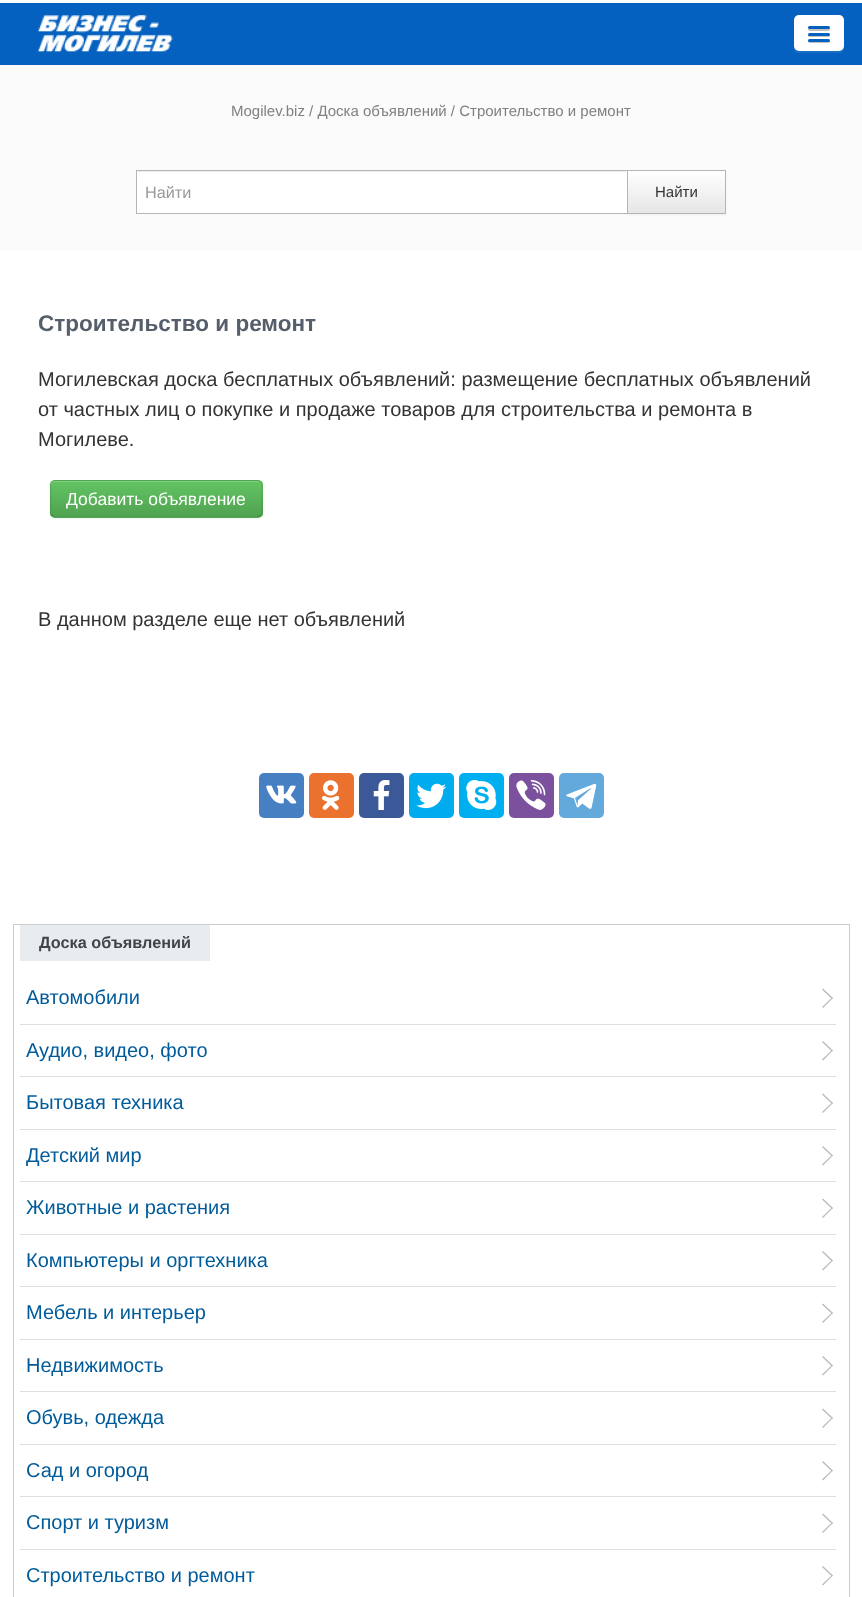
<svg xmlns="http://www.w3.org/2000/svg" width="862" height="1597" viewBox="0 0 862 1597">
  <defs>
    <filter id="blur1" x="-50%" y="-200%" width="200%" height="500%"><feGaussianBlur stdDeviation="1"/></filter>
    <linearGradient id="g1" gradientUnits="userSpaceOnUse" x1="676" y1="171" x2="676" y2="213"><stop offset="0" stop-color="#ffffff"/><stop offset="1" stop-color="#e6e6e6"/></linearGradient>
    <clipPath id="clip1"><rect x="50" y="480" width="213" height="38" rx="5"/></clipPath>
    <linearGradient id="g2" gradientUnits="userSpaceOnUse" x1="156" y1="481" x2="156" y2="516"><stop offset="0" stop-color="#62c462"/><stop offset="1" stop-color="#51a351"/></linearGradient>
  </defs>
  <rect width="100%" height="100%" fill="#ffffff"/>
  <rect x="0" y="3" width="862" height="62" fill="#0561bf"/>
  <image x="37" y="15" width="136" height="37" href="img1.png"/>
  <path d="M794 48V50C795 51 796 53 798 53H840L843 52C845 49 844 38 844 34V19V46C844 49 842 51 839 51H799C797 51 795 50 794 48Z" fill="#186dc4"/>
  <rect x="794" y="15" width="50" height="36" rx="5" fill="#ffffff"/>
  <path d="M799 16H839C842 16 844 18 844 21C844 14 838 15 832 15H806C800 15 794 14 794 21C794 18 796 16 799 16Z" fill="#ffffff" fill-opacity="0.1"/>
  <path d="M808.5 28.5C806.5 31.5 812 31 812.5 31H819C821 31 829 31.5 829.5 30.5C830 29.5 830 29 829.5 28.5C829 29 809.5 29 808.5 28.5Z" fill="#bfbfbf"/>
  <rect x="808" y="26" width="22" height="3" rx="1.5" fill="#0561bf"/>
  <path d="M808 35C807 37.5 812 37 812.5 37H825.5C825.5 37 832 37.5 829.5 34.5L829 35Z" fill="#bfbfbf"/>
  <rect x="808" y="33" width="22" height="3" rx="1.5" fill="#0561bf"/>
  <path d="M808 41C807.5 43.5 812 43 812.5 43H825.5C826 43 831.5 43.5 830 40.5L829 41Z" fill="#bfbfbf"/>
  <rect x="808" y="39" width="22" height="3" rx="1.5" fill="#0561bf"/>
  <rect x="0" y="65" width="862" height="186" fill="#fbfbfb"/>
  <text x="231" y="116" font-family="Liberation Sans" font-size="15" fill="#808080">Mogilev.biz / Доска объявлений / Строительство и ремонт</text>
  <rect x="626" y="171" width="100" height="44" fill="#000000" fill-opacity="0.05" filter="url(#blur1)"/>
  <rect x="628" y="171" width="97" height="42" fill="url(#g1)"/>
  <rect x="626.5" y="170.5" width="99" height="43" fill="none" stroke="#b5b5b5"/>
  <rect x="137" y="171" width="490" height="42" fill="#ffffff"/>
  <rect x="138" y="171" width="488" height="1" fill="#ececec"/>
  <rect x="136.5" y="170.5" width="491" height="43" fill="none" stroke="#b5b5b5"/>
  <text x="145" y="198" font-family="Liberation Sans" font-size="16.25" fill="#999999">Найти</text>
  <text x="655" y="197" font-family="Liberation Sans" font-size="15" fill="#333333">Найти</text>
  <text x="38" y="331" font-family="Liberation Sans" font-size="22.5" font-weight="bold" fill="#555e6b">Строительство и ремонт</text>
  <text x="38" y="386" font-family="Liberation Sans" font-size="20" fill="#333333">Могилевская доска бесплатных объявлений: размещение бесплатных объявлений</text>
  <text x="38" y="416" font-family="Liberation Sans" font-size="20" fill="#333333">от частных лиц о покупке и продаже товаров для строительства и ремонта в</text>
  <text x="38" y="446" font-family="Liberation Sans" font-size="20" fill="#333333">Могилеве.</text>
  <rect x="50" y="481" width="213" height="38" rx="5" fill="#000000" fill-opacity="0.05" filter="url(#blur1)"/>
  <rect x="50" y="480" width="213" height="38" rx="5" fill="#5bb75b"/>
  <g clip-path="url(#clip1)">
    <rect x="50" y="481" width="213" height="35" fill="url(#g2)"/>
  </g>
  <path d="M55 482H258C260 482 261 484 261 486V485C261 483 259 481 257 481H55C53 481 51 483 51 485V486C51 484 53 482 55 482Z" fill="#81d081"/>
  <path d="M260.5 515.5L257.5 517H54.5L52 515.5" fill="none" stroke="#000000" stroke-opacity="0.25" stroke-width="1.2"/>
  <path d="M52 515.5C51 515 50.5 513.5 50.5 512.5V485C50.5 484 51 482.5 52 482C52.5 481 54 480.5 55 480.5H257.5C258.5 480.5 260 481 260.5 482C261.5 482.5 262 484 262 485V512.5C262 513.5 261.5 515 260.5 515.5" fill="none" stroke="#000000" stroke-opacity="0.1" stroke-width="1.2"/>
  <text x="66" y="505" font-family="Liberation Sans" font-size="17.5" fill="#ffffff">Добавить объявление</text>
  <text x="38" y="626" font-family="Liberation Sans" font-size="20" fill="#333333">В данном разделе еще нет объявлений</text>
  <rect x="259" y="773" width="45" height="45" rx="5" fill="#4680c2"/>
  <image x="266" y="785" width="31" height="19" href="img2.png"/>
  <rect x="309" y="773" width="45" height="45" rx="5" fill="#eb722e"/>
  <image x="322" y="780" width="18" height="30" href="img3.png"/>
  <rect x="359" y="773" width="45" height="45" rx="5" fill="#3b5998"/>
  <image x="373" y="780" width="17" height="30" href="img4.png"/>
  <rect x="409" y="773" width="45" height="45" rx="5" fill="#00aced"/>
  <image x="416" y="783" width="31" height="26" href="img5.png"/>
  <rect x="459" y="773" width="45" height="45" rx="5" fill="#00aff0"/>
  <image x="466" y="780" width="31" height="30" href="img6.png"/>
  <rect x="509" y="773" width="45" height="45" rx="5" fill="#7b519d"/>
  <image x="516" y="780" width="30" height="30" href="img7.png"/>
  <rect x="559" y="773" width="45" height="45" rx="5" fill="#64a9dc"/>
  <image x="566" y="783" width="31" height="26" href="img8.png"/>
  <rect x="13.5" y="924.5" width="836" height="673" fill="none" stroke="#cccccc"/>
  <rect x="20" y="925" width="190" height="36" fill="#e9ecee"/>
  <text x="39" y="948" font-family="Liberation Sans" font-size="16.25" font-weight="bold" fill="#3e4548">Доска объявлений</text>
  <rect x="20" y="1024" width="816" height="1" fill="#e0e0e0"/>
  <text x="26" y="1004" font-family="Liberation Sans" font-size="20" fill="#005b9a">Автомобили</text>
  <path d="M823 988.5L833 998L832 999L822 989.5Z" fill="#bbbbbb"/>
  <path d="M832 997.5L833 998L823 1008L822 1007Z" fill="#bbbbbb"/>
  <rect x="20" y="1076" width="816" height="1" fill="#e0e0e0"/>
  <text x="26" y="1057" font-family="Liberation Sans" font-size="20" fill="#005b9a">Аудио, видео, фото</text>
  <path d="M823 1041L833 1050.5L832 1051.5L822 1042Z" fill="#bbbbbb"/>
  <path d="M832 1050L833 1050.5L823 1060.5L822 1059.5Z" fill="#bbbbbb"/>
  <rect x="20" y="1129" width="816" height="1" fill="#e0e0e0"/>
  <text x="26" y="1109" font-family="Liberation Sans" font-size="20" fill="#005b9a">Бытовая техника</text>
  <path d="M823 1093.5L833 1103L832 1104L822 1094.5Z" fill="#bbbbbb"/>
  <path d="M832 1102.5L833 1103L823 1113L822 1112Z" fill="#bbbbbb"/>
  <rect x="20" y="1181" width="816" height="1" fill="#e0e0e0"/>
  <text x="26" y="1162" font-family="Liberation Sans" font-size="20" fill="#005b9a">Детский мир</text>
  <path d="M823 1146L833 1155.5L832 1156.5L822 1147Z" fill="#bbbbbb"/>
  <path d="M832 1155L833 1155.5L823 1165.5L822 1164.5Z" fill="#bbbbbb"/>
  <rect x="20" y="1234" width="816" height="1" fill="#e0e0e0"/>
  <text x="26" y="1214" font-family="Liberation Sans" font-size="20" fill="#005b9a">Животные и растения</text>
  <path d="M823 1198.5L833 1208L832 1209L822 1199.5Z" fill="#bbbbbb"/>
  <path d="M832 1207.5L833 1208L823 1218L822 1217Z" fill="#bbbbbb"/>
  <rect x="20" y="1286" width="816" height="1" fill="#e0e0e0"/>
  <text x="26" y="1267" font-family="Liberation Sans" font-size="20" fill="#005b9a">Компьютеры и оргтехника</text>
  <path d="M823 1251L833 1260.5L832 1261.5L822 1252Z" fill="#bbbbbb"/>
  <path d="M832 1260L833 1260.5L823 1270.5L822 1269.5Z" fill="#bbbbbb"/>
  <rect x="20" y="1339" width="816" height="1" fill="#e0e0e0"/>
  <text x="26" y="1319" font-family="Liberation Sans" font-size="20" fill="#005b9a">Мебель и интерьер</text>
  <path d="M823 1303.5L833 1313L832 1314L822 1304.5Z" fill="#bbbbbb"/>
  <path d="M832 1312.5L833 1313L823 1323L822 1322Z" fill="#bbbbbb"/>
  <rect x="20" y="1391" width="816" height="1" fill="#e0e0e0"/>
  <text x="26" y="1372" font-family="Liberation Sans" font-size="20" fill="#005b9a">Недвижимость</text>
  <path d="M823 1356L833 1365.5L832 1366.5L822 1357Z" fill="#bbbbbb"/>
  <path d="M832 1365L833 1365.5L823 1375.5L822 1374.5Z" fill="#bbbbbb"/>
  <rect x="20" y="1444" width="816" height="1" fill="#e0e0e0"/>
  <text x="26" y="1424" font-family="Liberation Sans" font-size="20" fill="#005b9a">Обувь, одежда</text>
  <path d="M823 1408.5L833 1418L832 1419L822 1409.5Z" fill="#bbbbbb"/>
  <path d="M832 1417.5L833 1418L823 1428L822 1427Z" fill="#bbbbbb"/>
  <rect x="20" y="1496" width="816" height="1" fill="#e0e0e0"/>
  <text x="26" y="1477" font-family="Liberation Sans" font-size="20" fill="#005b9a">Сад и огород</text>
  <path d="M823 1461L833 1470.5L832 1471.5L822 1462Z" fill="#bbbbbb"/>
  <path d="M832 1470L833 1470.5L823 1480.5L822 1479.5Z" fill="#bbbbbb"/>
  <rect x="20" y="1549" width="816" height="1" fill="#e0e0e0"/>
  <text x="26" y="1529" font-family="Liberation Sans" font-size="20" fill="#005b9a">Спорт и туризм</text>
  <path d="M823 1513.5L833 1523L832 1524L822 1514.5Z" fill="#bbbbbb"/>
  <path d="M832 1522.5L833 1523L823 1533L822 1532Z" fill="#bbbbbb"/>
  <text x="26" y="1582" font-family="Liberation Sans" font-size="20" fill="#005b9a">Строительство и ремонт</text>
  <path d="M823 1566L833 1575.5L832 1576.5L822 1567Z" fill="#bbbbbb"/>
  <path d="M832 1575L833 1575.5L823 1585.5L822 1584.5Z" fill="#bbbbbb"/>
</svg>
